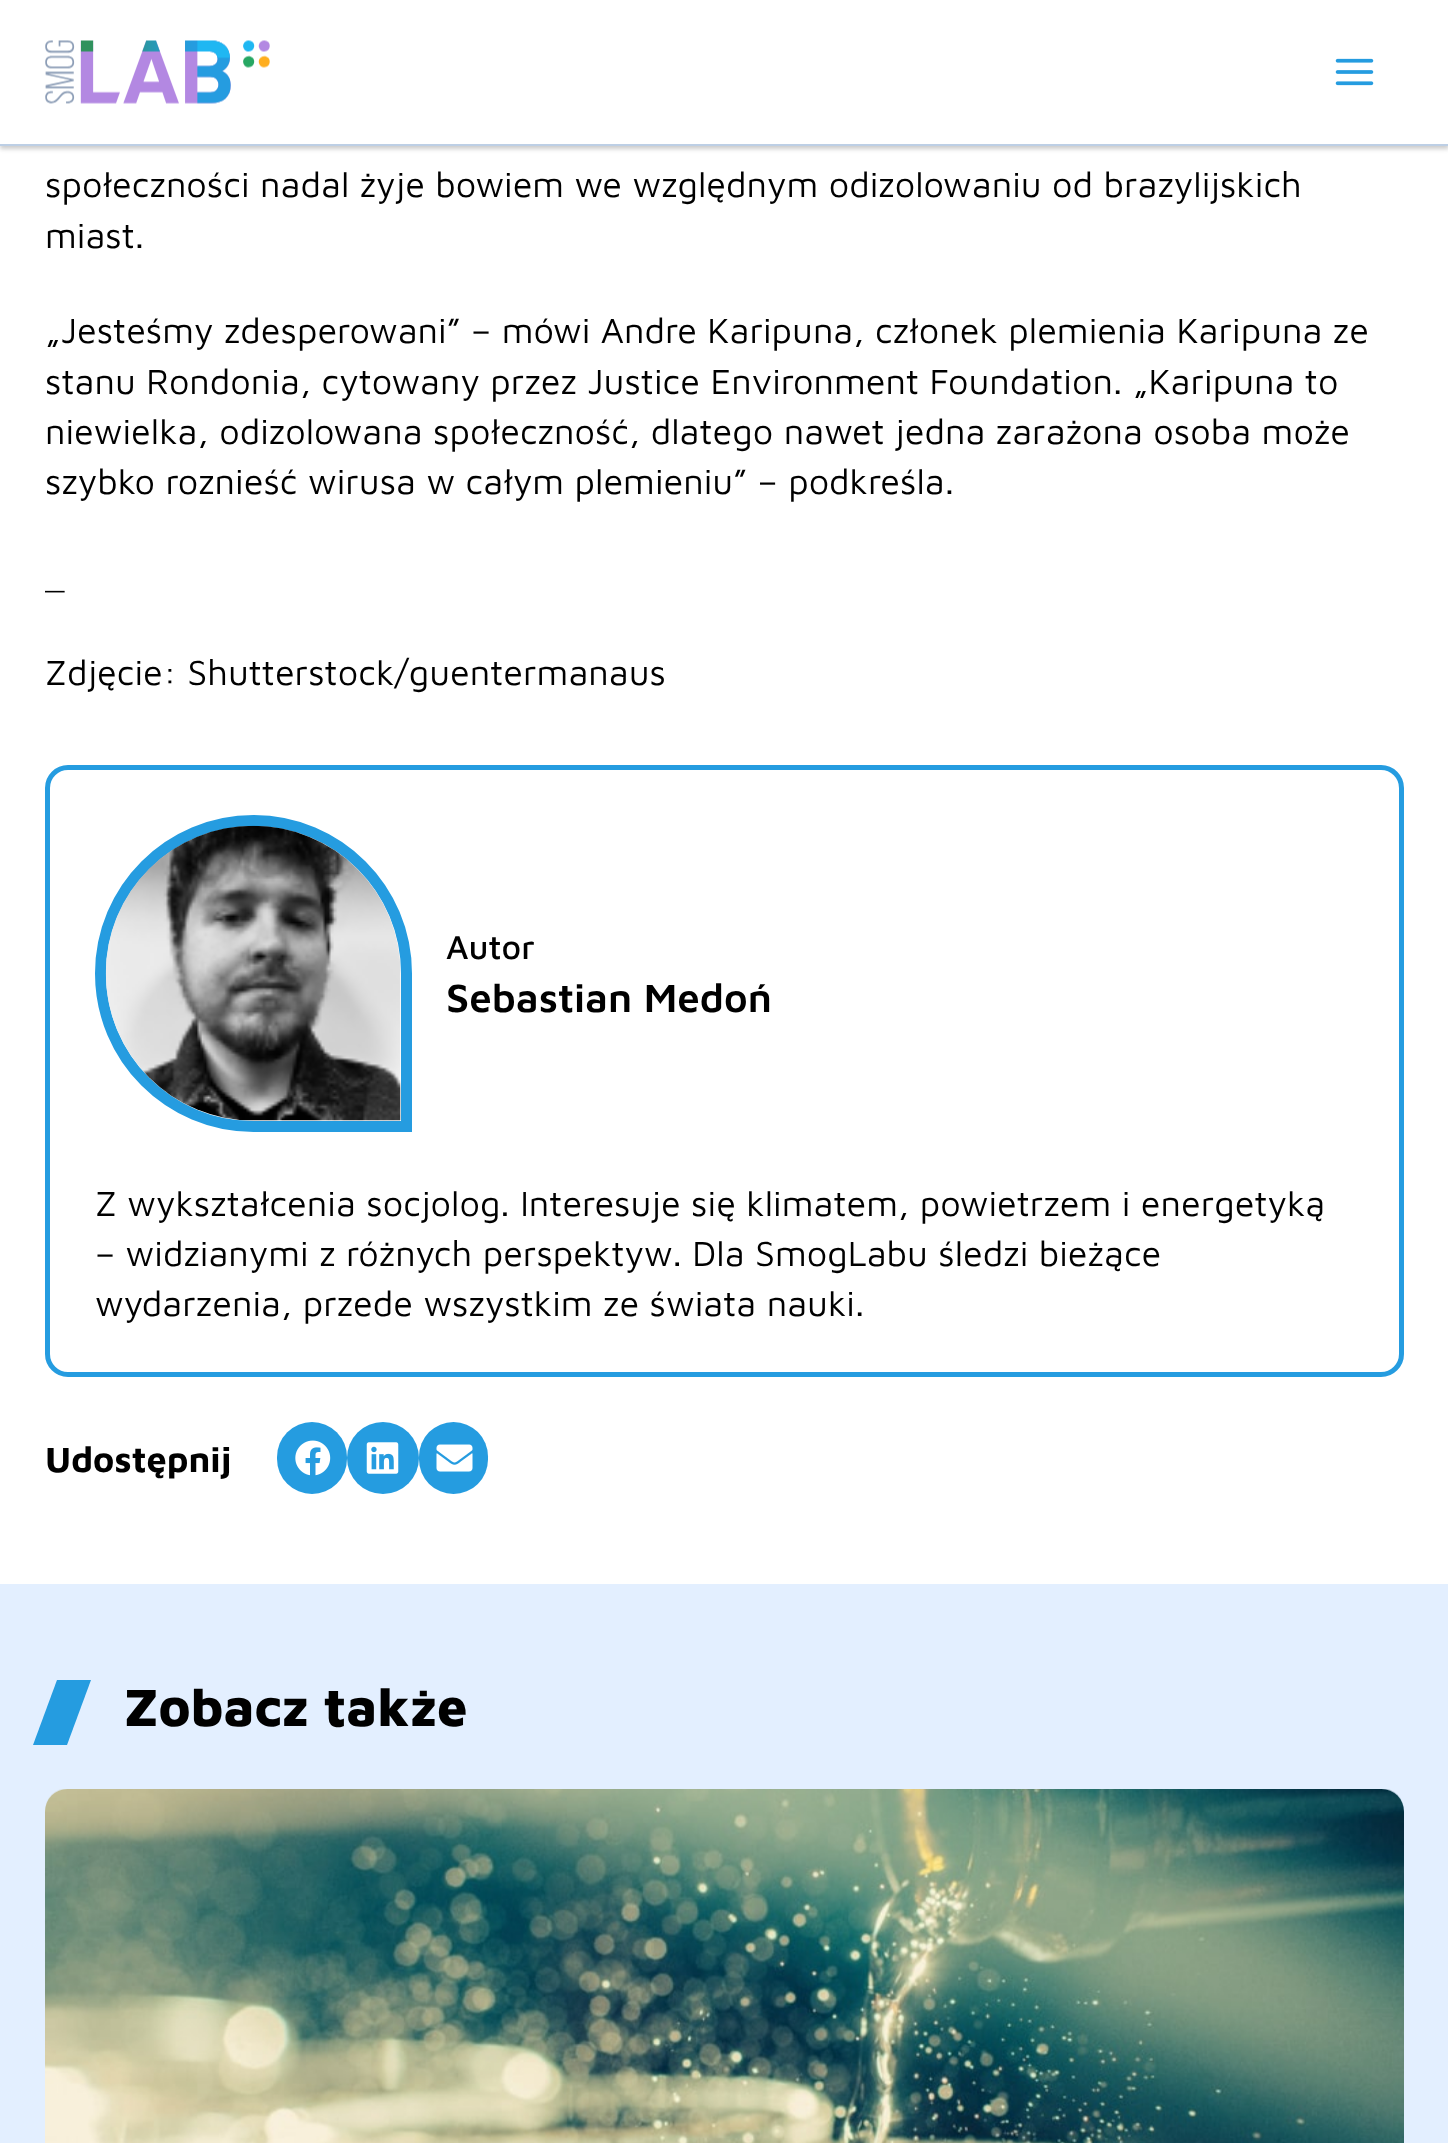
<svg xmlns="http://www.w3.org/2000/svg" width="1448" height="2143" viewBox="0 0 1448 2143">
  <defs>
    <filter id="blur1" x="-50%" y="-200%" width="200%" height="500%"><feGaussianBlur stdDeviation="2"/></filter>
  </defs>
  <rect width="100%" height="100%" fill="#ffffff"/>
  <rect x="0" y="2" width="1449" height="147" fill="#000000" fill-opacity="0.2" filter="url(#blur1)"/>
  <rect x="0" y="0" width="1448" height="144" fill="#ffffff"/>
  <rect x="0" y="144" width="1448" height="2" fill="#bdcfe5"/>
  <image x="45" y="40" width="225" height="64" href="img1.png"/>
  <image x="1335" y="58" width="39" height="28" href="img2.png"/>
  <text x="45" y="197" font-family="Maven Pro" font-size="36" fill="#000000">społeczności nadal żyje bowiem we względnym odizolowaniu od brazylijskich</text>
  <text x="45" y="248" font-family="Maven Pro" font-size="36" fill="#000000">miast.</text>
  <text x="45" y="343" font-family="Maven Pro" font-size="36" fill="#000000">„Jesteśmy zdesperowani” – mówi Andre Karipuna, członek plemienia Karipuna ze</text>
  <text x="45" y="394" font-family="Maven Pro" font-size="36" fill="#000000">stanu Rondonia, cytowany przez Justice Environment Foundation. „Karipuna to</text>
  <text x="45" y="444" font-family="Maven Pro" font-size="36" fill="#000000">niewielka, odizolowana społeczność, dlatego nawet jedna zarażona osoba może</text>
  <text x="45" y="494" font-family="Maven Pro" font-size="36" fill="#000000">szybko roznieść wirusa w całym plemieniu” – podkreśla.</text>
  <text x="45" y="590" font-family="Maven Pro" font-size="36" fill="#000000">_</text>
  <text x="45" y="685" font-family="Maven Pro" font-size="36" fill="#000000">Zdjęcie: Shutterstock/guentermanaus</text>
  <rect x="47.5" y="767.5" width="1354" height="607" rx="20.5" fill="none" stroke="#259ce0" stroke-width="5"/>
  <path d="M253.5 820.5C338 820.5 406.5 889 406.5 973.5V1126.5H253.5C169 1126.5 100.5 1058 100.5 973.5C100.5 889 169 820.5 253.5 820.5Z" fill="none" stroke="#259ce0" stroke-width="11"/>
  <image x="105" y="825" width="296" height="296" href="img3.png"/>
  <text x="446" y="959" font-family="Maven Pro" font-size="34" font-weight="500" fill="#000000">Autor</text>
  <text x="446" y="1012" font-family="Maven Pro" font-size="40.5" font-weight="600" fill="#000000">Sebastian Medoń</text>
  <text x="95" y="1216" font-family="Maven Pro" font-size="36" fill="#000000">Z wykształcenia socjolog. Interesuje się klimatem, powietrzem i energetyką</text>
  <text x="95" y="1266" font-family="Maven Pro" font-size="36" fill="#000000">– widzianymi z różnych perspektyw. Dla SmogLabu śledzi bieżące</text>
  <text x="95" y="1316" font-family="Maven Pro" font-size="36" fill="#000000">wydarzenia, przede wszystkim ze świata nauki.</text>
  <text x="45" y="1472" font-family="Maven Pro" font-size="36" font-weight="bold" fill="#000000">Udostępnij</text>
  <rect x="277" y="1422" width="70" height="72" rx="35" fill="#259ce0"/>
  <image x="295" y="1440" width="36" height="36" href="img4.png"/>
  <circle cx="383" cy="1458" r="36" fill="#259ce0"/>
  <image x="366" y="1442" width="33" height="32" href="img5.png"/>
  <rect x="419" y="1422" width="69" height="72" rx="34.5" fill="#259ce0"/>
  <image x="436" y="1444" width="37" height="28" href="img6.png"/>
  <rect x="0" y="1584" width="1448" height="559" fill="#e3efff"/>
  <path d="M57 1680H91L67 1745H33Z" fill="#259ce0"/>
  <text x="124" y="1726" font-family="Maven Pro" font-size="54" font-weight="800" fill="#000000">Zobacz także</text>
  <image x="45" y="1789" width="1359" height="354" href="img7.png"/>
</svg>
